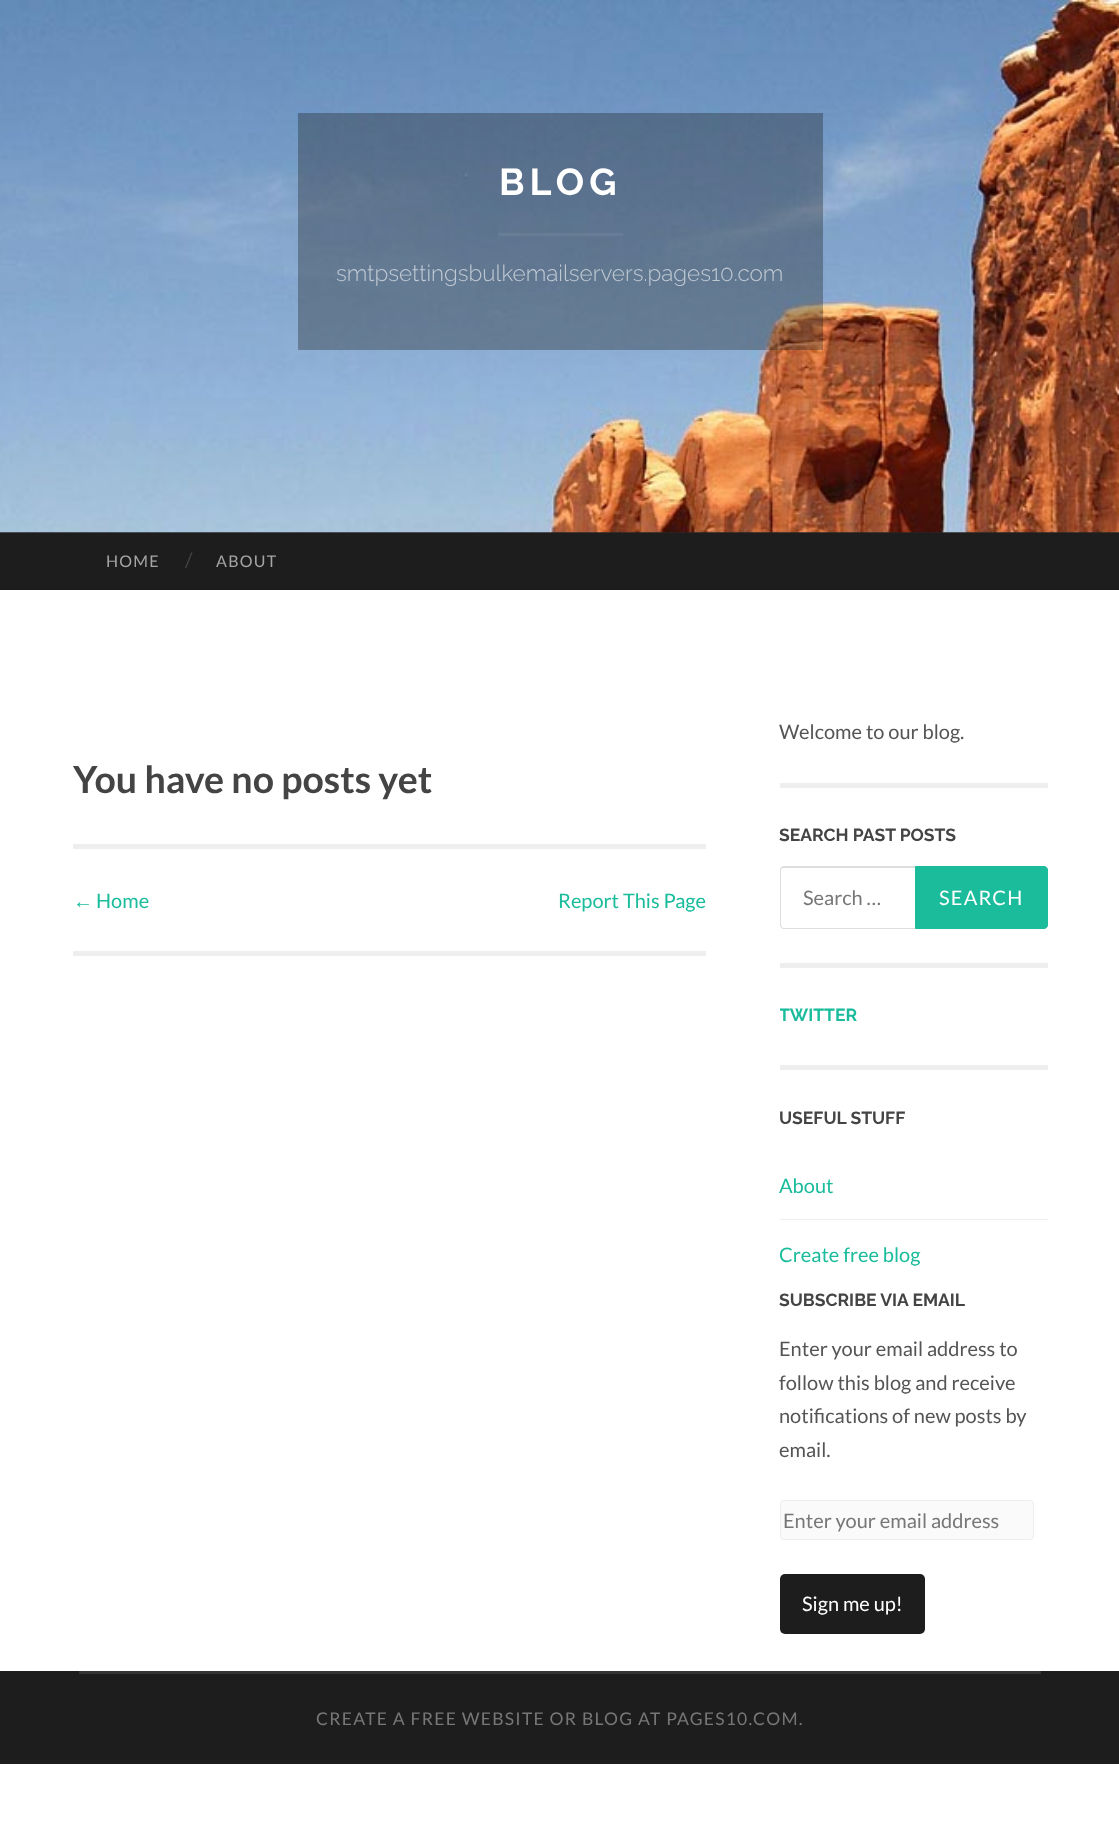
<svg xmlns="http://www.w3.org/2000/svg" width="1119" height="1829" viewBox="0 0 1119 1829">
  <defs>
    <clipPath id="clip1"><rect x="780" y="715" width="268" height="919"/></clipPath>
  </defs>
  <rect width="100%" height="100%" fill="#ffffff"/>
  <rect x="0" y="532" width="1119" height="1" fill="#262626"/>
  <image x="0" y="0" width="1119" height="533" href="img1.png"/>
  <rect x="298" y="113" width="525" height="237" fill="#1d1d1d" fill-opacity="0.34"/>
  <text x="499" y="195" font-family="Raleway" font-size="37.5" font-weight="bold" letter-spacing="5" fill="#ffffff">BLOG</text>
  <rect x="498" y="233" width="125" height="3" fill="#ffffff" fill-opacity="0.06"/>
  <text x="336" y="281" font-family="Raleway" font-size="22.5" font-weight="300" fill="#c0c9d3">smtpsettingsbulkemailservers.pages10.com</text>
  <rect x="0" y="533" width="1119" height="57" fill="#1d1d1d"/>
  <text x="106" y="567" font-family="Lato" font-size="16" letter-spacing="1.25" fill="#a5a5a5">HOME</text>
  <text x="185" y="567" font-family="Lato" font-size="20" fill="#444444">/</text>
  <text x="216" y="567" font-family="Lato" font-size="16" letter-spacing="1.25" fill="#a5a5a5">ABOUT</text>
  <text x="73" y="793" font-family="Lato" font-size="37.5" font-weight="bold" fill="#444444">You have no posts yet</text>
  <rect x="73" y="844" width="633" height="5" fill="#eeeeee"/>
  <rect x="73" y="951" width="633" height="5" fill="#eeeeee"/>
  <text x="73" y="908" font-family="Liberation Sans" font-size="20" fill="#1abc9c">←</text>
  <text x="96" y="908" font-family="Lato" font-size="20" fill="#1abc9c">Home</text>
  <text x="558" y="908" font-family="Lato" font-size="20" fill="#1abc9c">Report This Page</text>
  <rect x="780" y="783" width="268" height="5" fill="#eeeeee"/>
  <text x="779" y="739" font-family="Lato" font-size="20" fill="#555555">Welcome to our blog.</text>
  <rect x="780" y="963" width="268" height="5" fill="#eeeeee"/>
  <text x="779" y="841" font-family="Raleway" font-size="17.5" font-weight="bold" fill="#444444">SEARCH PAST POSTS</text>
  <path d="M784 866H1045V929H784C782 929 780 927 780 925V870C780 868 782 866 784 866ZM784 868H1045V928H784C782 928 781 926 781 925V870C781 869 782 868 784 868Z" fill="#dddddd" fill-rule="evenodd"/>
  <text x="803" y="905" font-family="Lato" font-size="20" fill="#777777">Search …</text>
  <path d="M915.5 866.5H1044C1046 866.5 1047.5 868 1047.5 870V925C1047.5 927 1046 928.5 1044 928.5H915.5Z" fill="#1abc9c" stroke="#1abc9c"/>
  <text x="939" y="905" font-family="Lato" font-size="20" letter-spacing="1.25" fill="#ffffff">SEARCH</text>
  <rect x="780" y="1065" width="268" height="5" fill="#eeeeee"/>
  <g clip-path="url(#clip1)">
    <text x="779" y="1021" font-family="Raleway" font-size="17.5" font-weight="bold" fill="#1abc9c">TWITTER</text>
  </g>
  <text x="779" y="1124" font-family="Raleway" font-size="17.5" font-weight="bold" fill="#444444">USEFUL STUFF</text>
  <text x="779" y="1193" font-family="Lato" font-size="20" fill="#1abc9c">About</text>
  <rect x="780" y="1219" width="268" height="1" fill="#eeeeee"/>
  <text x="779" y="1262" font-family="Lato" font-size="20" fill="#1abc9c">Create free blog</text>
  <text x="779" y="1306" font-family="Raleway" font-size="17.5" font-weight="bold" fill="#444444">SUBSCRIBE VIA EMAIL</text>
  <text x="779" y="1356" font-family="Lato" font-size="20" fill="#555555">Enter your email address to</text>
  <text x="779" y="1390" font-family="Lato" font-size="20" fill="#555555">follow this blog and receive</text>
  <text x="779" y="1423" font-family="Lato" font-size="20" fill="#555555">notifications of new posts by</text>
  <text x="779" y="1457" font-family="Lato" font-size="20" fill="#555555">email.</text>
  <rect x="780.5" y="1500.5" width="253" height="39" rx="3.5" fill="#fafafa" stroke="#eeeeee"/>
  <text x="783" y="1528" font-family="Lato" font-size="20" fill="#777777">Enter your email address</text>
  <rect x="780" y="1574" width="145" height="60" rx="5" fill="#1d1d1d"/>
  <text x="802" y="1611" font-family="Lato" font-size="20" fill="#ffffff">Sign me up!</text>
  <rect x="0" y="1671" width="1119" height="93" fill="#1d1d1d"/>
  <rect x="79" y="1671" width="962" height="3" fill="#343434"/>
  <text x="316" y="1725" font-family="Lato" font-size="17.5" letter-spacing="1.25" fill="#777777">CREATE A FREE WEBSITE OR BLOG AT PAGES10.COM.</text>
</svg>
